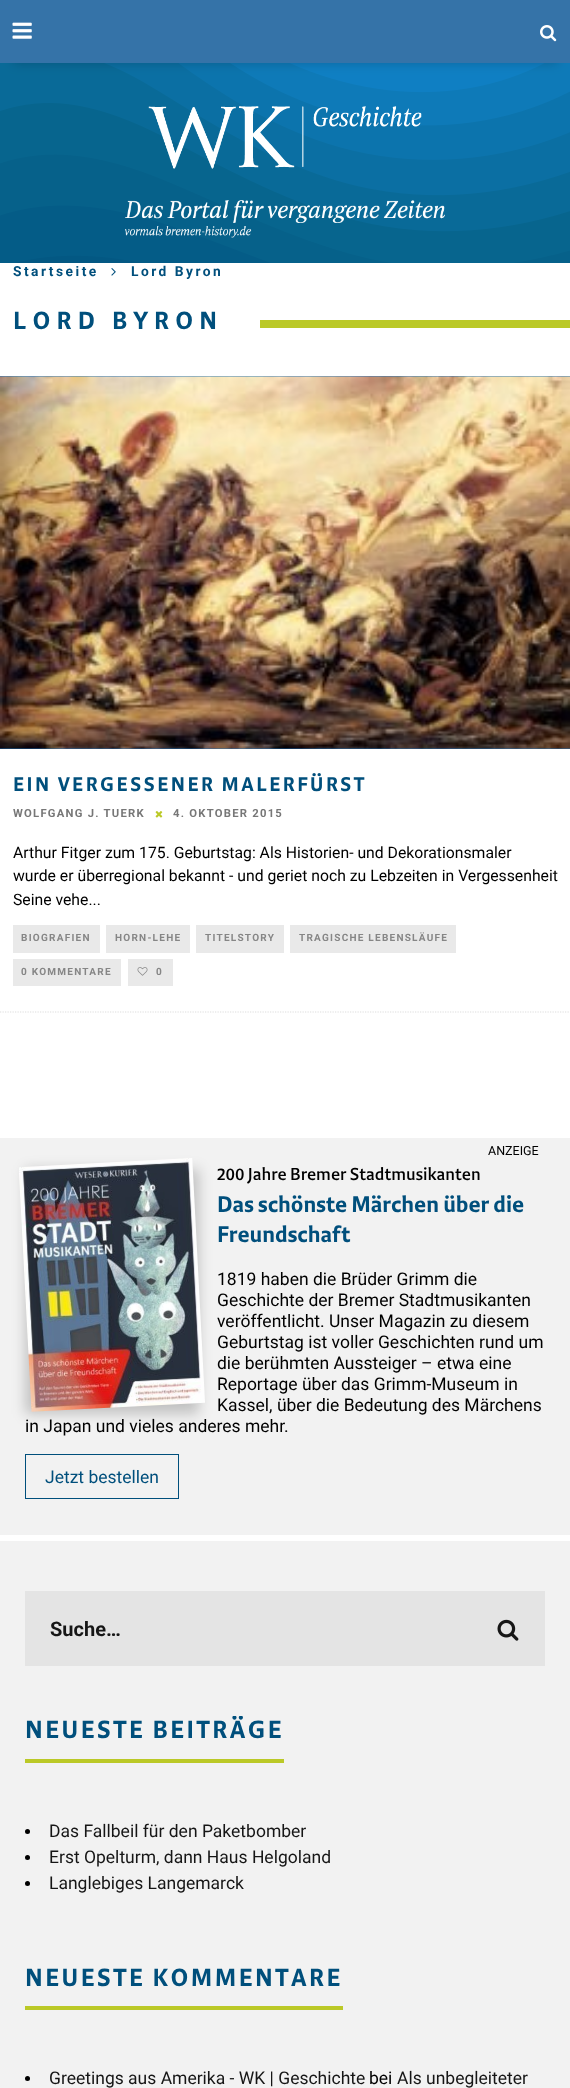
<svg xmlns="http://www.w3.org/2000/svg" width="570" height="2088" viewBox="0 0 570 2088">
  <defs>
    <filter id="blur1" x="-50%" y="-200%" width="200%" height="500%"><feGaussianBlur stdDeviation="6"/></filter>
    <filter id="blur2" x="-50%" y="-200%" width="200%" height="500%"><feGaussianBlur stdDeviation="6.5"/></filter>
    <clipPath id="clip1"><rect x="25" y="1716" width="520" height="198"/></clipPath>
  </defs>
  <rect width="100%" height="100%" fill="#ffffff"/>
  <image x="0" y="63" width="570" height="200" href="img3.png"/>
  <rect x="13" y="25" width="545" height="38" fill="#000000" fill-opacity="0.2" filter="url(#blur1)"/>
  <rect x="0" y="0" width="570" height="63" fill="#3573a8"/>
  <image x="12" y="22" width="20" height="17" href="img1.png"/>
  <image x="540" y="25" width="17" height="17" href="img2.png"/>
  <image x="148" y="106" width="274" height="63" href="img4.png"/>
  <image x="125" y="200" width="320" height="38" href="img5.png"/>
  <text x="13" y="276" font-family="Roboto" font-size="13.75" font-weight="bold" letter-spacing="2.5" fill="#004f7c">Startseite</text>
  <image x="111" y="268" width="5" height="8" href="img6.png"/>
  <text x="131" y="276" font-family="Roboto" font-size="13.75" font-weight="bold" letter-spacing="2.5" fill="#004f7c">Lord Byron</text>
  <text x="13" y="329" font-family="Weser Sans" font-size="25" font-weight="bold" letter-spacing="6.25" fill="#004f7c">LORD BYRON</text>
  <rect x="260" y="320" width="310" height="8" fill="#bbc927"/>
  <path d="M0 1012H570" fill="none" stroke="#dddddd" stroke-width="1.2" stroke-dasharray="1.25 1.25"/>
  <rect x="0" y="376" width="570" height="373" fill="#1d71ba"/>
  <image x="0" y="376" width="570" height="373" href="img7.png"/>
  <text x="13" y="791" font-family="Weser Sans" font-size="20" font-weight="bold" letter-spacing="2.5" fill="#004f7c">EIN VERGESSENER MALERFÜRST</text>
  <text x="13" y="817" font-family="Roboto" font-size="11.25" font-weight="bold" letter-spacing="1.25" fill="#777777">WOLFGANG J. TUERK</text>
  <image x="155" y="811" width="8" height="7" href="img8.png"/>
  <text x="173" y="817" font-family="Roboto" font-size="11.25" font-weight="bold" letter-spacing="1.25" fill="#777777">4. OKTOBER 2015</text>
  <text x="13" y="858" font-family="Roboto" font-size="15.75" fill="#000000">Arthur Fitger zum 175. Geburtstag: Als Historien- und Dekorationsmaler</text>
  <text x="13" y="881" font-family="Roboto" font-size="15.75" fill="#000000">wurde er überregional bekannt - und geriet noch zu Lebzeiten in Vergessenheit</text>
  <text x="13" y="905" font-family="Roboto" font-size="15.75" fill="#000000">Seine vehe...</text>
  <rect x="13" y="925" width="87" height="28" fill="#e9e9e9"/>
  <text x="21" y="941" font-family="Roboto" font-size="10" font-weight="bold" letter-spacing="1.25" fill="#868686">BIOGRAFIEN</text>
  <rect x="106" y="925" width="84" height="28" fill="#e9e9e9"/>
  <text x="115" y="941" font-family="Roboto" font-size="10" font-weight="bold" letter-spacing="1.25" fill="#868686">HORN-LEHE</text>
  <rect x="196" y="925" width="88" height="28" fill="#e9e9e9"/>
  <text x="205" y="941" font-family="Roboto" font-size="10" font-weight="bold" letter-spacing="1.25" fill="#868686">TITELSTORY</text>
  <rect x="290" y="925" width="166" height="28" fill="#e9e9e9"/>
  <text x="299" y="941" font-family="Roboto" font-size="10" font-weight="bold" letter-spacing="1.25" fill="#868686">TRAGISCHE LEBENSLÄUFE</text>
  <rect x="13" y="959" width="108" height="27" fill="#e9e9e9"/>
  <text x="21" y="975" font-family="Roboto" font-size="10" font-weight="bold" letter-spacing="1.25" fill="#868686">0 KOMMENTARE</text>
  <rect x="128" y="959" width="45" height="27" fill="#e9e9e9"/>
  <image x="137" y="967" width="11" height="9" href="img9.png"/>
  <text x="156" y="975" font-family="Roboto" font-size="10" font-weight="bold" letter-spacing="2.5" fill="#868686">0</text>
  <rect x="0" y="1138" width="570" height="950" fill="#f2f2f2"/>
  <rect x="25" y="1169" width="174" height="245" fill="#000000" fill-opacity="0.2" filter="url(#blur2)"/>
  <image x="19" y="1158" width="186" height="254" href="img10.png"/>
  <text x="488" y="1155" font-family="Roboto" font-size="12.5" fill="#000000">ANZEIGE</text>
  <text x="217" y="1180" font-family="Weser Sans" font-size="17.5" font-weight="600" fill="#000000">200 Jahre Bremer Stadtmusikanten</text>
  <text x="217" y="1212" font-family="Weser Sans" font-size="22.75" font-weight="bold" fill="#004f7c">Das schönste Märchen über die</text>
  <text x="217" y="1242" font-family="Weser Sans" font-size="22.75" font-weight="bold" fill="#004f7c">Freundschaft</text>
  <text x="217" y="1285" font-family="Roboto" font-size="17.5" fill="#000000">1819 haben die Brüder Grimm die</text>
  <text x="217" y="1306" font-family="Roboto" font-size="17.5" fill="#000000">Geschichte der Bremer Stadtmusikanten</text>
  <text x="217" y="1327" font-family="Roboto" font-size="17.5" fill="#000000">veröffentlicht. Unser Magazin zu diesem</text>
  <text x="217" y="1348" font-family="Roboto" font-size="17.5" fill="#000000">Geburtstag ist voller Geschichten rund um</text>
  <text x="217" y="1369" font-family="Roboto" font-size="17.5" fill="#000000">die berühmten Aussteiger – etwa eine</text>
  <text x="217" y="1390" font-family="Roboto" font-size="17.5" fill="#000000">Reportage über das Grimm-Museum in</text>
  <text x="217" y="1411" font-family="Roboto" font-size="17.5" fill="#000000">Kassel, über die Bedeutung des Märchens</text>
  <text x="25" y="1432" font-family="Roboto" font-size="17.5" fill="#000000">in Japan und vieles anderes mehr.</text>
  <rect x="25.5" y="1454.5" width="153" height="44" fill="none" stroke="#004f7c"/>
  <text x="45" y="1483" font-family="Roboto" font-size="17.5" fill="#004f7c">Jetzt bestellen</text>
  <rect x="0" y="1535" width="570" height="6" fill="#ffffff"/>
  <rect x="25" y="1591" width="520" height="75" fill="#e4e4e4"/>
  <text x="50" y="1636" font-family="Roboto" font-size="20" font-weight="bold" fill="#161616">Suche…</text>
  <image x="497" y="1619" width="22" height="22" href="img11.png"/>
  <rect x="25" y="1759" width="259" height="4" fill="#bbc927"/>
  <g clip-path="url(#clip1)">
    <text x="25" y="1738" font-family="Weser Sans" font-size="25" font-weight="bold" letter-spacing="2.5" fill="#004f7c">NEUESTE BEITRÄGE</text>
  </g>
  <circle cx="27.5" cy="1831.5" r="2.5" fill="#000000"/>
  <text x="49" y="1837" font-family="Roboto" font-size="17.5" fill="#161616">Das Fallbeil für den Paketbomber</text>
  <circle cx="27.5" cy="1857.5" r="2.5" fill="#000000"/>
  <text x="49" y="1863" font-family="Roboto" font-size="17.5" fill="#161616">Erst Opelturm, dann Haus Helgoland</text>
  <circle cx="27.5" cy="1883.5" r="2.5" fill="#000000"/>
  <text x="49" y="1889" font-family="Roboto" font-size="17.5" fill="#161616">Langlebiges Langemarck</text>
  <rect x="25" y="2006" width="318" height="4" fill="#bbc927"/>
  <text x="25" y="1986" font-family="Weser Sans" font-size="25" font-weight="bold" letter-spacing="2.5" fill="#004f7c">NEUESTE KOMMENTARE</text>
  <circle cx="27.5" cy="2078.5" r="2.5" fill="#000000"/>
  <text x="49" y="2084" font-family="Roboto" font-size="17.5" fill="#161616">Greetings aus Amerika - WK | Geschichte</text>
  <text x="369" y="2084" font-family="Roboto" font-size="17.5" fill="#000000">bei</text>
  <text x="397" y="2084" font-family="Roboto" font-size="17.5" fill="#161616">Als unbegleiteter</text>
</svg>
